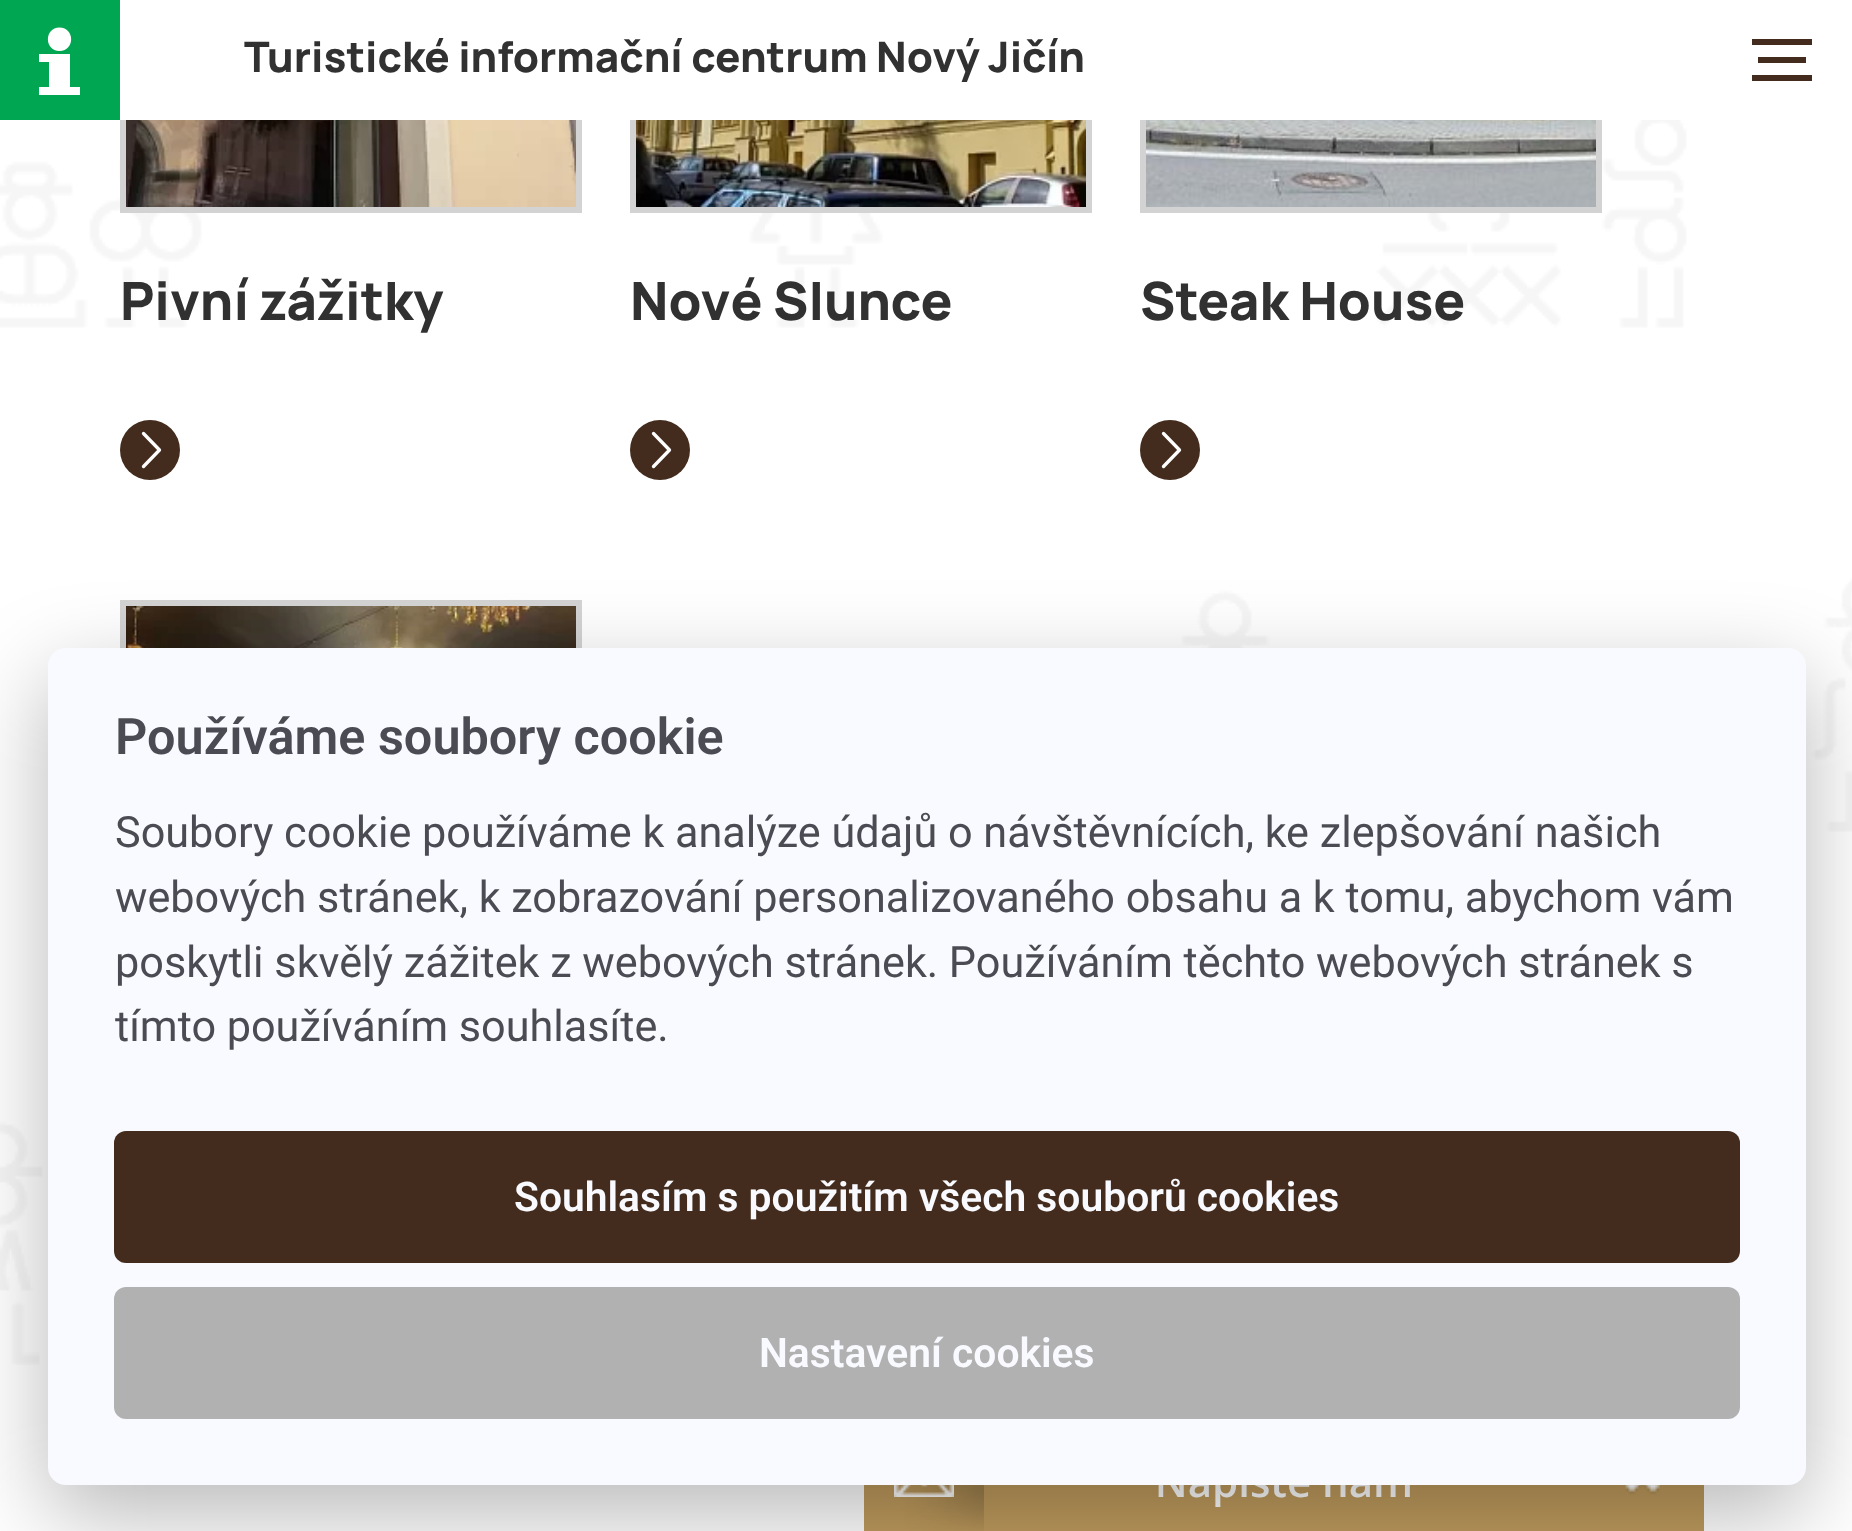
<svg xmlns="http://www.w3.org/2000/svg" width="1852" height="1531" viewBox="0 0 1852 1531">
  <defs>
    <filter id="blur1" x="-50%" y="-200%" width="200%" height="500%"><feGaussianBlur stdDeviation="45"/></filter>
  </defs>
  <rect width="100%" height="100%" fill="#ffffff"/>
  <image x="0" y="120" width="1852" height="1245" href="img5.png"/>
  <rect x="123" y="-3" width="456" height="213" fill="none" stroke="#d3d3d3" stroke-width="6"/>
  <rect x="633" y="-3" width="456" height="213" fill="none" stroke="#d3d3d3" stroke-width="6"/>
  <rect x="1143" y="-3" width="456" height="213" fill="none" stroke="#d3d3d3" stroke-width="6"/>
  <rect x="120" y="0" width="1482" height="120" fill="#ffffff"/>
  <rect x="0" y="0" width="120" height="120" fill="#00a651"/>
  <path d="M39 54V62H49V87H39V95H80V87H70V54Z" fill="#ffffff"/>
  <path d="M59.5 51C75 51 75 27.5 59.5 27.5C44 27.5 44 51 59.5 51" fill="#ffffff"/>
  <text x="244" y="72" font-family="Manrope" font-size="42" font-weight="800" fill="#313131">T</text>
  <text x="267" y="72" font-family="Manrope" font-size="42" font-weight="800" fill="#313131">uristické informační c</text>
  <text x="715" y="72" font-family="Manrope" font-size="42" font-weight="800" fill="#313131">entrum Nový Jičín</text>
  <rect x="1752" y="75" width="60" height="6" fill="#432c1d"/>
  <rect x="1758" y="57" width="48" height="6" fill="#432c1d"/>
  <rect x="1752" y="39" width="60" height="6" fill="#432c1d"/>
  <image x="126" y="120" width="450" height="87" href="img1.png"/>
  <text x="120" y="320" font-family="Manrope" font-size="52.75" font-weight="800" fill="#313131">Pivní zážitky</text>
  <circle cx="150" cy="450" r="30" fill="#432c1d"/>
  <path d="M143.5 433.5L159.5 450M143.5 466.5L159.5 450" fill="none" stroke="#ffffff" stroke-width="3.3" stroke-linecap="round"/>
  <image x="636" y="120" width="450" height="87" href="img2.png"/>
  <text x="630" y="320" font-family="Manrope" font-size="52.75" font-weight="800" fill="#313131">Nové Slunce</text>
  <circle cx="660" cy="450" r="30" fill="#432c1d"/>
  <path d="M653.5 433.5L669.5 450M653.5 466.5L669.5 450" fill="none" stroke="#ffffff" stroke-width="3.3" stroke-linecap="round"/>
  <image x="1146" y="120" width="450" height="87" href="img3.png"/>
  <text x="1140" y="320" font-family="Manrope" font-size="52.75" font-weight="800" fill="#313131">Steak House</text>
  <circle cx="1170" cy="450" r="30" fill="#432c1d"/>
  <path d="M1163.5 433.5L1179.5 450M1163.5 466.5L1179.5 450" fill="none" stroke="#ffffff" stroke-width="3.3" stroke-linecap="round"/>
  <rect x="123" y="603" width="456" height="456" fill="none" stroke="#d3d3d3" stroke-width="6"/>
  <image x="126" y="606" width="450" height="42" href="img4.png"/>
  <image x="864" y="1485" width="840" height="46" href="img6.png"/>
  <rect x="48" y="678" width="1758" height="837" rx="18" fill="#020203" fill-opacity="0.28" filter="url(#blur1)"/>
  <rect x="48" y="648" width="1758" height="837" rx="18" fill="#f9faff"/>
  <text x="115" y="754" font-family="Roboto" font-size="50.4" font-weight="600" fill="#4b4b54">Používáme soubory cookie</text>
  <text x="115" y="847" font-family="Roboto" font-size="43.2" fill="#4b4b54">Soubory cookie používáme k analýze údajů o návštěvnících, ke zlepšování našich</text>
  <text x="115" y="912" font-family="Roboto" font-size="43.2" fill="#4b4b54">webových stránek, k zobrazování personalizovaného obsahu a k tomu, abychom vám</text>
  <text x="115" y="977" font-family="Roboto" font-size="43.2" fill="#4b4b54">poskytli skvělý zážitek z webových stránek. Používáním těchto webových stránek s</text>
  <text x="115" y="1041" font-family="Roboto" font-size="43.2" fill="#4b4b54">tímto používáním souhlasíte.</text>
  <rect x="114" y="1131" width="1626" height="132" rx="12" fill="#432c1d"/>
  <text x="514" y="1211" font-family="Roboto" font-size="40.8" font-weight="600" fill="#f9faff">Souhlasím s použitím všech souborů cookies</text>
  <rect x="114" y="1287" width="1626" height="132" rx="12" fill="#b1b1b1"/>
  <text x="759" y="1367" font-family="Roboto" font-size="40.8" font-weight="600" fill="#f9faff">Nastavení cookies</text>
</svg>
